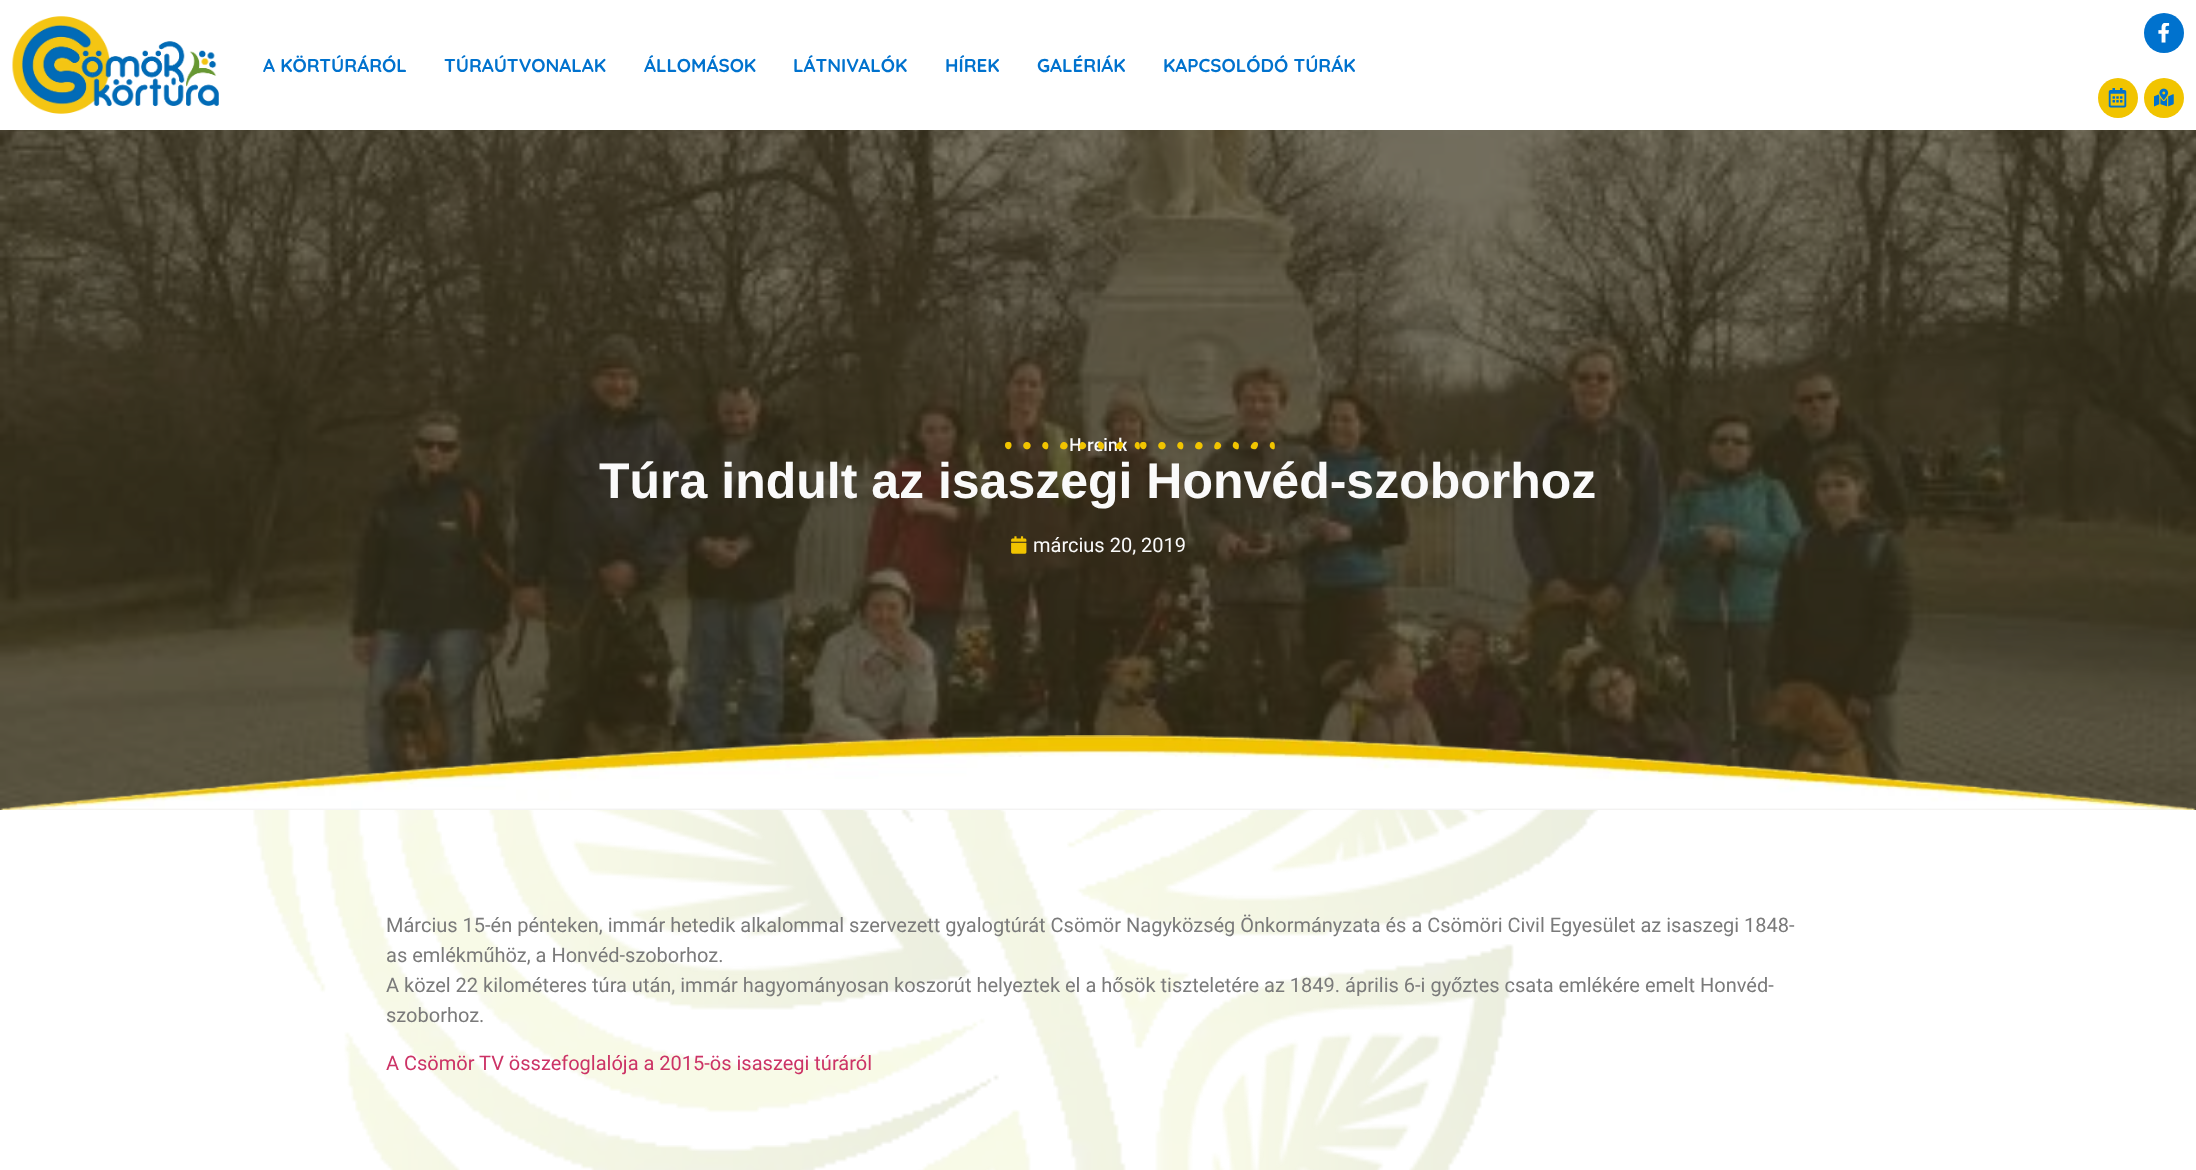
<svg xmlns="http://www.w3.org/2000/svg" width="2196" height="1170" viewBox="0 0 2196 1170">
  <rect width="100%" height="100%" fill="#ffffff"/>
  <image x="12" y="16" width="207" height="98" href="img1.png"/>
  <text x="263" y="72" font-family="Quicksand" font-size="18.75" font-weight="bold" fill="#0072ce">A KÖRTÚRÁRÓL</text>
  <text x="444" y="72" font-family="Quicksand" font-size="18.75" font-weight="bold" fill="#0072ce">TÚRAÚTVONALAK</text>
  <text x="644" y="72" font-family="Quicksand" font-size="18.75" font-weight="bold" fill="#0072ce">ÁLLOMÁSOK</text>
  <text x="793" y="72" font-family="Quicksand" font-size="18.75" font-weight="bold" fill="#0072ce">LÁTNIVALÓK</text>
  <text x="945" y="72" font-family="Quicksand" font-size="18.75" font-weight="bold" fill="#0072ce">HÍREK</text>
  <text x="1037" y="72" font-family="Quicksand" font-size="18.75" font-weight="bold" fill="#0072ce">GALÉRIÁK</text>
  <text x="1163" y="72" font-family="Quicksand" font-size="18.75" font-weight="bold" fill="#0072ce">KAPCSOLÓDÓ TÚRÁK</text>
  <circle cx="2164" cy="33" r="20" fill="#0072ce"/>
  <image x="2158" y="23" width="12" height="20" href="img2.png"/>
  <circle cx="2118" cy="98" r="20" fill="#f1c400"/>
  <image x="2108" y="88" width="19" height="20" href="img3.png"/>
  <circle cx="2164" cy="98" r="20" fill="#f1c400"/>
  <image x="2154" y="88" width="20" height="19" href="img4.png"/>
  <image x="0" y="130" width="2196" height="680" href="img5.png"/>
  <text x="1069" y="451" font-family="Sunflower" font-size="18.75" font-weight="500" fill="#fafafa">H</text>
  <text x="1087" y="451" font-family="Sunflower" font-size="18.75" font-weight="500" fill="#fafafa">reink</text>
  <image x="1005" y="441" width="135" height="9" href="img6.png"/>
  <image x="1140" y="441" width="135" height="9" href="img7.png"/>
  <text x="599" y="498" font-family="Liberation Sans" font-size="50" font-weight="bold" fill="#fafafa">Túra indult az isaszegi Honvéd-szoborhoz</text>
  <image x="1011" y="536" width="16" height="18" href="img8.png"/>
  <text x="1033" y="552" font-family="Roboto" font-size="20" fill="#fafafa">március 20, 2019</text>
  <image x="0" y="735" width="2196" height="75" href="img9.png"/>
  <image x="253" y="810" width="1345" height="360" href="img10.png"/>
  <text x="386" y="932" font-family="Roboto" font-size="20" fill="#7a7a7a">Március 15-én pénteken, immár hetedik alkalommal szervezett gyalogtúrát Csömör Nagyközség Önkormányzata és a Csömöri Civil Egyesület az isaszegi 1848-</text>
  <text x="386" y="962" font-family="Roboto" font-size="20" fill="#7a7a7a">as emlékműhöz, a Honvéd-szoborhoz.</text>
  <text x="386" y="992" font-family="Roboto" font-size="20" fill="#7a7a7a">A közel 22 kilométeres túra után, immár hagyományosan koszorút helyeztek el a hősök tiszteletére az 1849. április 6-i győztes csata emlékére emelt Honvéd-</text>
  <text x="386" y="1022" font-family="Roboto" font-size="20" fill="#7a7a7a">szoborhoz.</text>
  <text x="386" y="1070" font-family="Roboto" font-size="20" fill="#cc3366">A Csömör TV összefoglalója a 2015-ös isaszegi túráról</text>
</svg>
